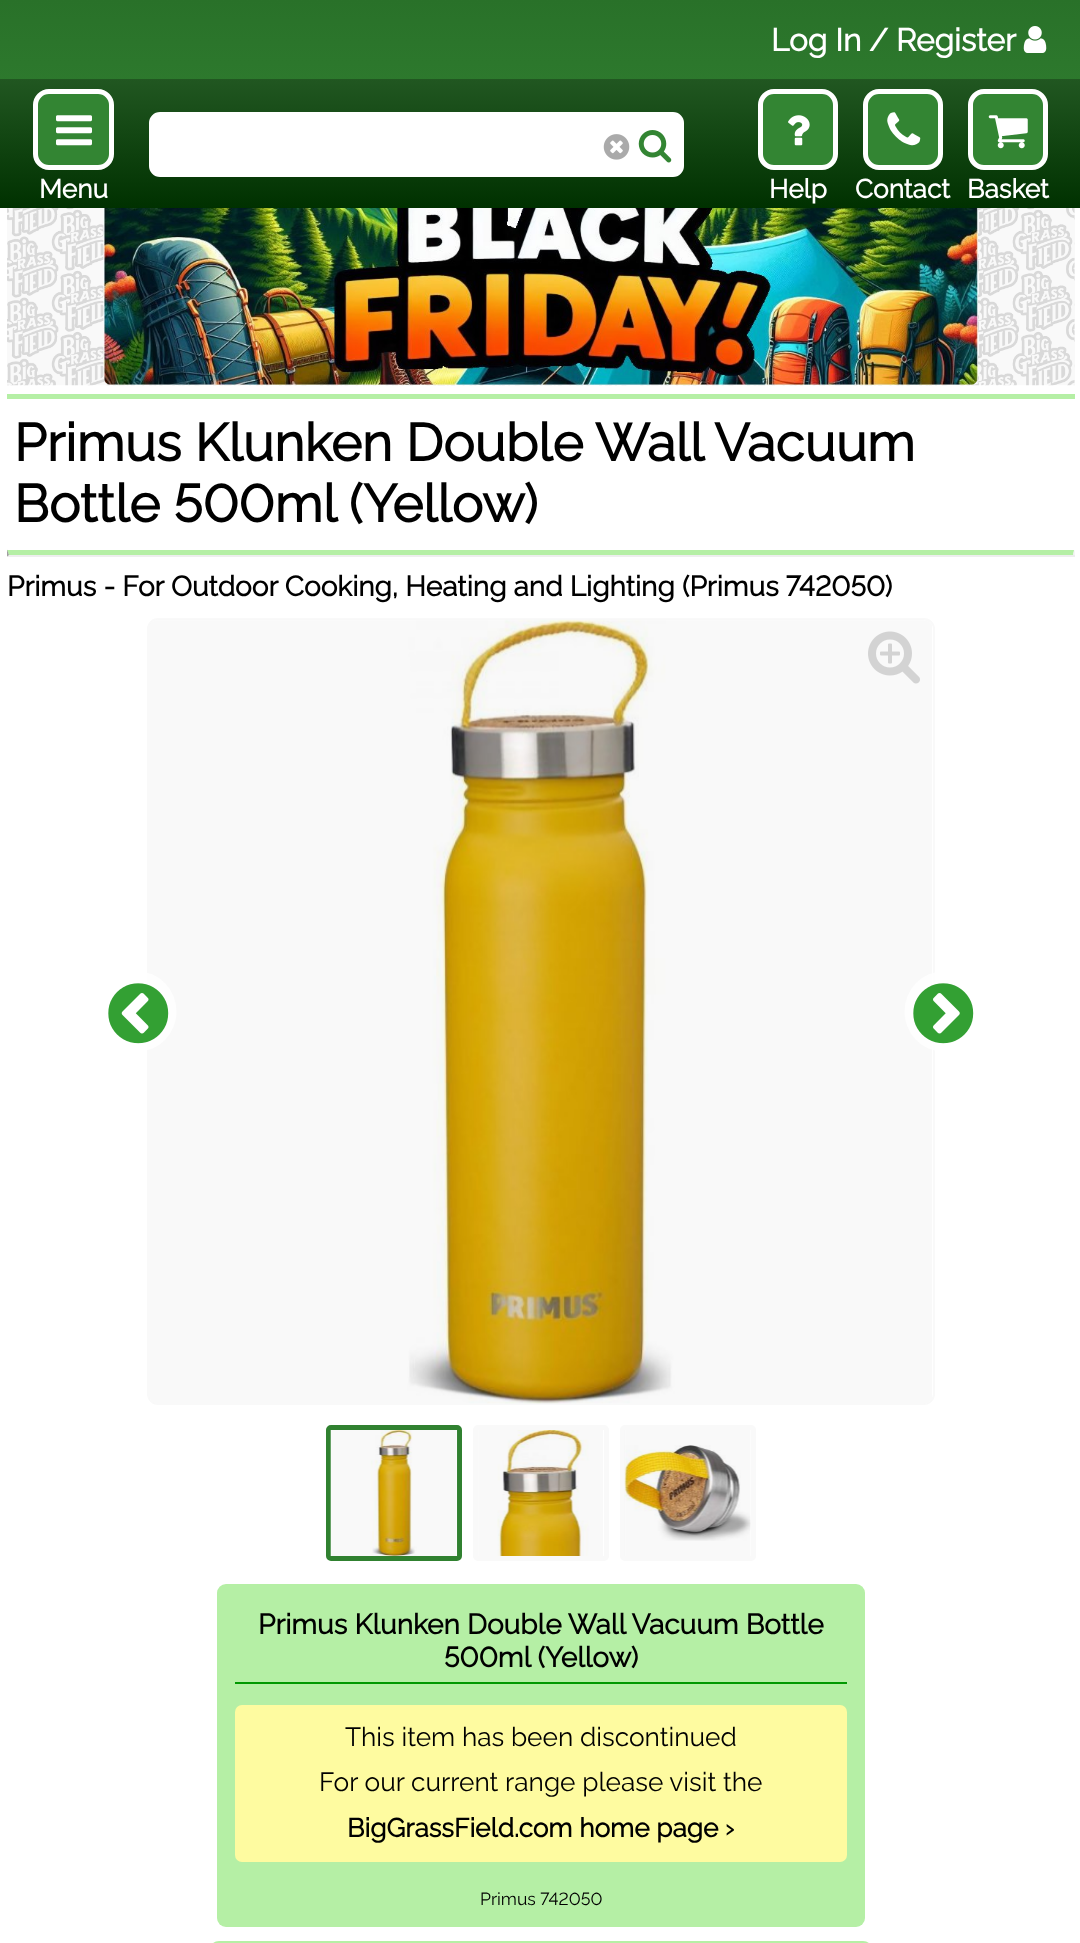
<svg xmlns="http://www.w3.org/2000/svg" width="1080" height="1943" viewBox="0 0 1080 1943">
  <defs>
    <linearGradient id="g1" gradientUnits="userSpaceOnUse" x1="541" y1="208" x2="541" y2="0"><stop offset="0" stop-color="#338533"/><stop offset="1" stop-color="#297129"/></linearGradient>
    <linearGradient id="g2" gradientUnits="userSpaceOnUse" x1="541" y1="208" x2="541" y2="79"><stop offset="0" stop-color="#003100"/><stop offset="1" stop-color="#215721"/></linearGradient>
  </defs>
  <rect width="100%" height="100%" fill="#ffffff"/>
  <rect x="0" y="0" width="1080" height="79" fill="url(#g1)"/>
  <text x="771" y="51" font-family="Raleway" font-size="31.5" font-weight="bold" fill="#ffffff">Log In</text>
  <text x="869" y="51" font-family="Raleway" font-size="31.5" font-weight="bold" fill="#ffffff">/ Register</text>
  <image x="1023" y="26" width="24" height="27" href="img1.png"/>
  <rect x="0" y="79" width="1080" height="129" fill="url(#g2)"/>
  <rect x="151" y="114" width="531" height="61" rx="9" fill="#ffffff" stroke="#ffffff" stroke-width="4"/>
  <image x="603" y="134" width="27" height="26" href="img2.png"/>
  <image x="638" y="130" width="34" height="33" href="img3.png"/>
  <rect x="35.5" y="91.5" width="76" height="76" rx="13.5" fill="#338533" stroke="#ffffff" stroke-width="5"/>
  <image x="56" y="115" width="36" height="31" href="img4.png"/>
  <text x="39" y="198" font-family="Raleway" font-size="26.25" font-weight="bold" fill="#ffffff">Menu</text>
  <rect x="760.5" y="91.5" width="75" height="76" rx="13.5" fill="#338533" stroke="#ffffff" stroke-width="5"/>
  <image x="788" y="115" width="22" height="31" href="img5.png"/>
  <text x="769" y="198" font-family="Raleway" font-size="26.25" font-weight="bold" fill="#ffffff">Help</text>
  <rect x="865.5" y="91.5" width="75" height="76" rx="13.5" fill="#338533" stroke="#ffffff" stroke-width="5"/>
  <image x="887" y="112" width="34" height="34" href="img6.png"/>
  <text x="855" y="198" font-family="Raleway" font-size="26.25" font-weight="bold" fill="#ffffff">Contact</text>
  <rect x="970.5" y="91.5" width="75" height="76" rx="13.5" fill="#338533" stroke="#ffffff" stroke-width="5"/>
  <image x="988" y="115" width="40" height="34" href="img7.png"/>
  <text x="967" y="198" font-family="Raleway" font-size="26.25" font-weight="bold" fill="#ffffff">Basket</text>
  <rect x="1074" y="208" width="1" height="177" fill="#f9f9f9"/>
  <image x="7" y="208" width="1068" height="178" href="img8.png"/>
  <image x="103" y="208" width="875" height="178" href="img9.png"/>
  <rect x="7" y="394" width="1068" height="5" fill="#b5efa5"/>
  <text x="14" y="461" font-family="Raleway" font-size="52.5" font-weight="bold" fill="#000000">Primus Klunken Double Wall Vacuum</text>
  <text x="14" y="522" font-family="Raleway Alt" font-size="52.5" font-weight="bold" fill="#000000">Bottle 500ml (Yellow)</text>
  <path d="M7 550H1074L1073 555H9Z" fill="#b5efa5"/>
  <path d="M1074.5 549.5V556.5L1073 555Z" fill="#eeeeee"/>
  <rect x="7" y="555" width="1068" height="2" fill="#eeeeee"/>
  <path d="M7 556.5V549.5L9 555Z" fill="#9f9f9f"/>
  <text x="7" y="596" font-family="Raleway Alt" font-size="28" font-weight="bold" fill="#000000">Primus - For Outdoor Cooking, Heating and Lighting (Primus 742050)</text>
  <rect x="148" y="619" width="786" height="785" rx="10" fill="none" stroke="#f9f9f9" stroke-width="2"/>
  <image x="149" y="619" width="783" height="785" href="img11.png"/>
  <ellipse cx="138" cy="1011.5" rx="38.5" ry="40" fill="#ffffff" fill-opacity="0.8"/>
  <image x="108" y="983" width="61" height="61" href="img10.png"/>
  <image x="868" y="631" width="52" height="53" href="img12.png"/>
  <ellipse cx="943" cy="1011.5" rx="38.5" ry="40" fill="#ffffff" fill-opacity="0.8"/>
  <image x="913" y="983" width="61" height="61" href="img13.png"/>
  <rect x="328.5" y="1427.5" width="131" height="131" rx="2.5" fill="none" stroke="#308130" stroke-width="5"/>
  <image x="330" y="1430" width="128" height="126" href="img14.png"/>
  <rect x="475.5" y="1427.5" width="131" height="131" rx="2.5" fill="none" stroke="#f9f9f9" stroke-width="5"/>
  <image x="478" y="1430" width="125" height="126" href="img15.png"/>
  <rect x="622.5" y="1427.5" width="131" height="131" rx="2.5" fill="none" stroke="#f9f9f9" stroke-width="5"/>
  <image x="624" y="1430" width="127" height="126" href="img16.png"/>
  <rect x="217" y="1584" width="648" height="343" rx="9" fill="#b5efa5"/>
  <rect x="235" y="1682" width="612" height="2" fill="#009900"/>
  <text x="258" y="1634" font-family="Raleway" font-size="28" font-weight="bold" fill="#000000">Primus Klunken Double Wall Vacuum Bottle</text>
  <text x="444" y="1667" font-family="Raleway Alt" font-size="28" font-weight="bold" fill="#000000">500ml (Yellow)</text>
  <rect x="235" y="1705" width="612" height="157" rx="7" fill="#fefba0"/>
  <text x="345" y="1746" font-family="Raleway" font-size="26.25" font-weight="100" fill="#000000">This item has been discontinued</text>
  <text x="319" y="1791" font-family="Raleway" font-size="26.25" font-weight="100" fill="#000000">For our current range please visit the</text>
  <text x="347" y="1837" font-family="Raleway" font-size="26.25" font-weight="bold" fill="#000000">BigGrassField.com home page ›</text>
  <text x="480" y="1905" font-family="Raleway Alt" font-size="17.5" font-weight="100" fill="#000000">Primus 742050</text>
  <rect x="212.5" y="1943.5" width="657" height="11" rx="6.5" fill="none" stroke="#b5efa5" stroke-width="5"/>
</svg>
